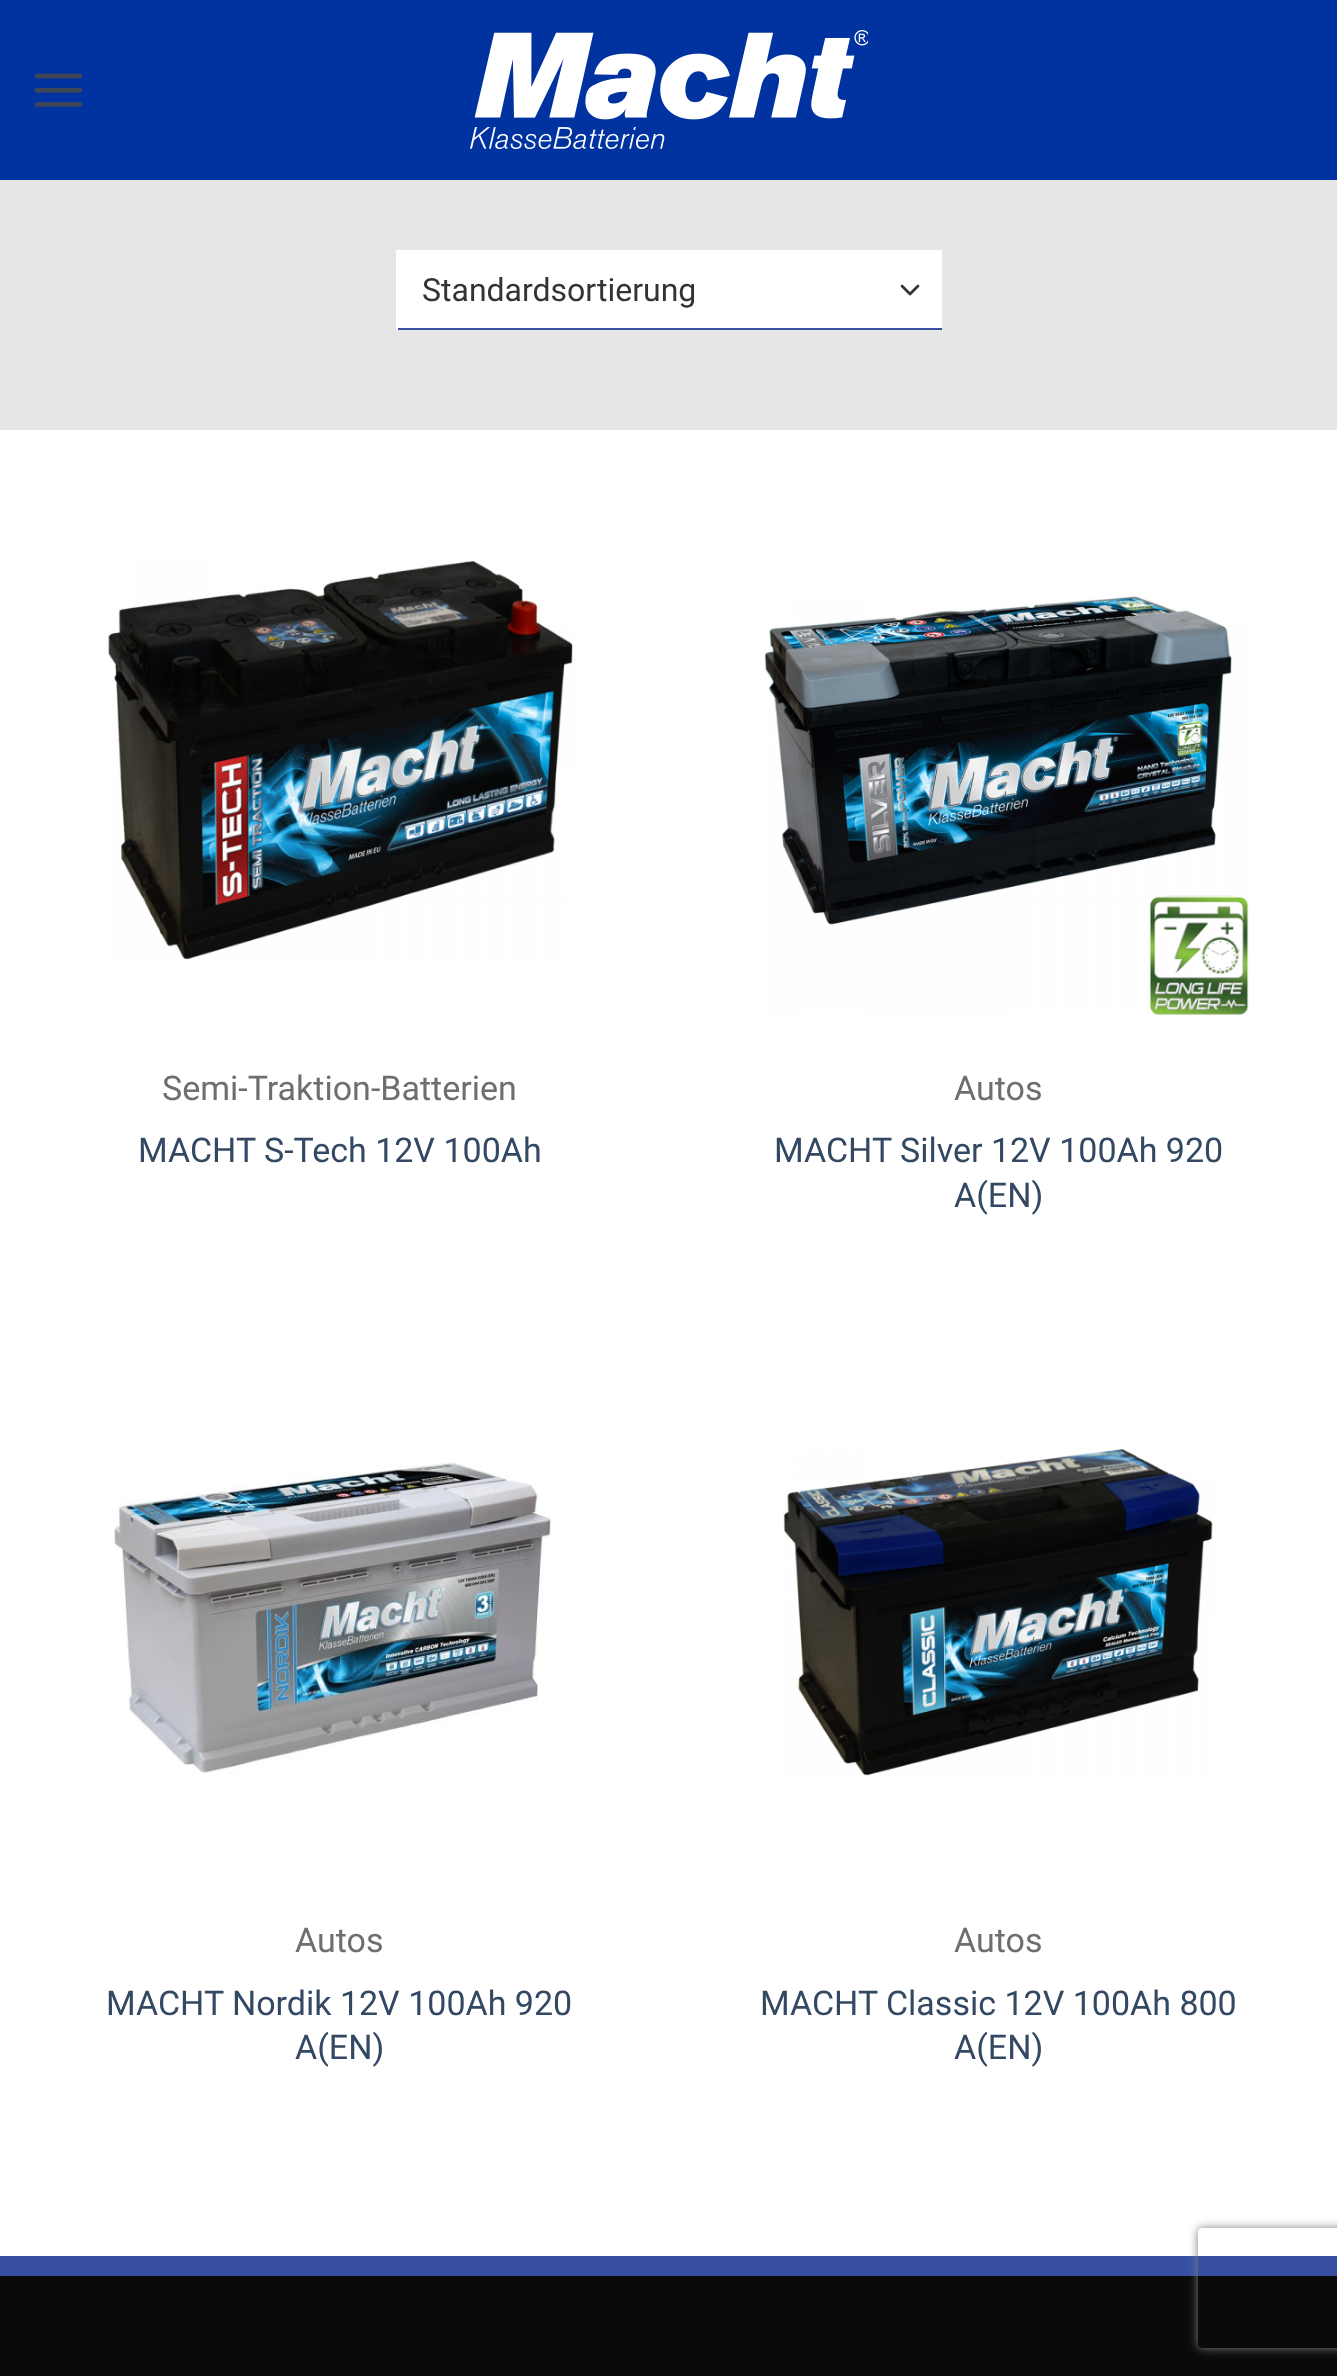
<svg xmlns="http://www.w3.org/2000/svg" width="1337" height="2376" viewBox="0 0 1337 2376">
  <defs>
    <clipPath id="clip1"><path d="M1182 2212H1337V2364H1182ZM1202 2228H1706C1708 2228 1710 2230 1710 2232V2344C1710 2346 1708 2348 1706 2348H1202C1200 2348 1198 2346 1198 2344V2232C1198 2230 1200 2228 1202 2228Z" clip-rule="evenodd"/></clipPath>
    <filter id="blur1" x="-50%" y="-200%" width="200%" height="500%"><feGaussianBlur stdDeviation="5"/></filter>
  </defs>
  <rect width="100%" height="100%" fill="#ffffff"/>
  <rect x="0" y="0" width="1337" height="180" fill="#0033a0"/>
  <image x="34" y="73" width="49" height="34" href="img1.png"/>
  <image x="470" y="30" width="398" height="119" href="img2.png"/>
  <rect x="0" y="180" width="1337" height="250" fill="#e6e6e6"/>
  <rect x="398" y="250" width="544" height="78" fill="#ffffff"/>
  <path d="M902 286L910 294L918 286" fill="none" stroke="#333333" stroke-width="2.7" stroke-linecap="round" stroke-linejoin="round"/>
  <rect x="396" y="328" width="546" height="2" fill="#3750a3"/>
  <rect x="396" y="250" width="2" height="80" fill="#ffffff"/>
  <text x="422" y="301" font-family="Roboto" font-size="32" fill="#333333">Standardsortierung</text>
  <image x="108" y="560" width="465" height="400" href="img3.png"/>
  <text x="162" y="1100" font-family="Roboto" font-size="34" fill="#6e6e6e">Semi-Traktion-Batterien</text>
  <text x="138" y="1162" font-family="Roboto" font-size="34" fill="#334862">MACHT S-Tech 12V 100Ah</text>
  <image x="764" y="596" width="485" height="419" href="img4.png"/>
  <text x="954" y="1100" font-family="Roboto" font-size="34" fill="#6e6e6e">Autos</text>
  <text x="774" y="1162" font-family="Roboto" font-size="34" fill="#334862">MACHT Silver 12V 100Ah 920</text>
  <text x="954" y="1207" font-family="Roboto" font-size="34" fill="#334862">A(EN)</text>
  <image x="114" y="1462" width="437" height="312" href="img5.png"/>
  <text x="295" y="1952" font-family="Roboto" font-size="34" fill="#6e6e6e">Autos</text>
  <text x="106" y="2015" font-family="Roboto" font-size="34" fill="#334862">MACHT Nordik 12V 100Ah 920</text>
  <text x="295" y="2059" font-family="Roboto" font-size="34" fill="#334862">A(EN)</text>
  <image x="783" y="1449" width="430" height="327" href="img6.png"/>
  <text x="954" y="1952" font-family="Roboto" font-size="34" fill="#6e6e6e">Autos</text>
  <text x="760" y="2015" font-family="Roboto" font-size="34" fill="#334862">MACHT Classic 12V 100Ah 800</text>
  <text x="954" y="2059" font-family="Roboto" font-size="34" fill="#334862">A(EN)</text>
  <rect x="0" y="2276" width="1337" height="100" fill="#0a0a0a"/>
  <rect x="0" y="2256" width="1337" height="20" fill="#3750a3"/>
  <g clip-path="url(#clip1)">
    <rect x="1198" y="2228" width="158" height="120" rx="4" fill="#808080" filter="url(#blur1)"/>
  </g>
</svg>
